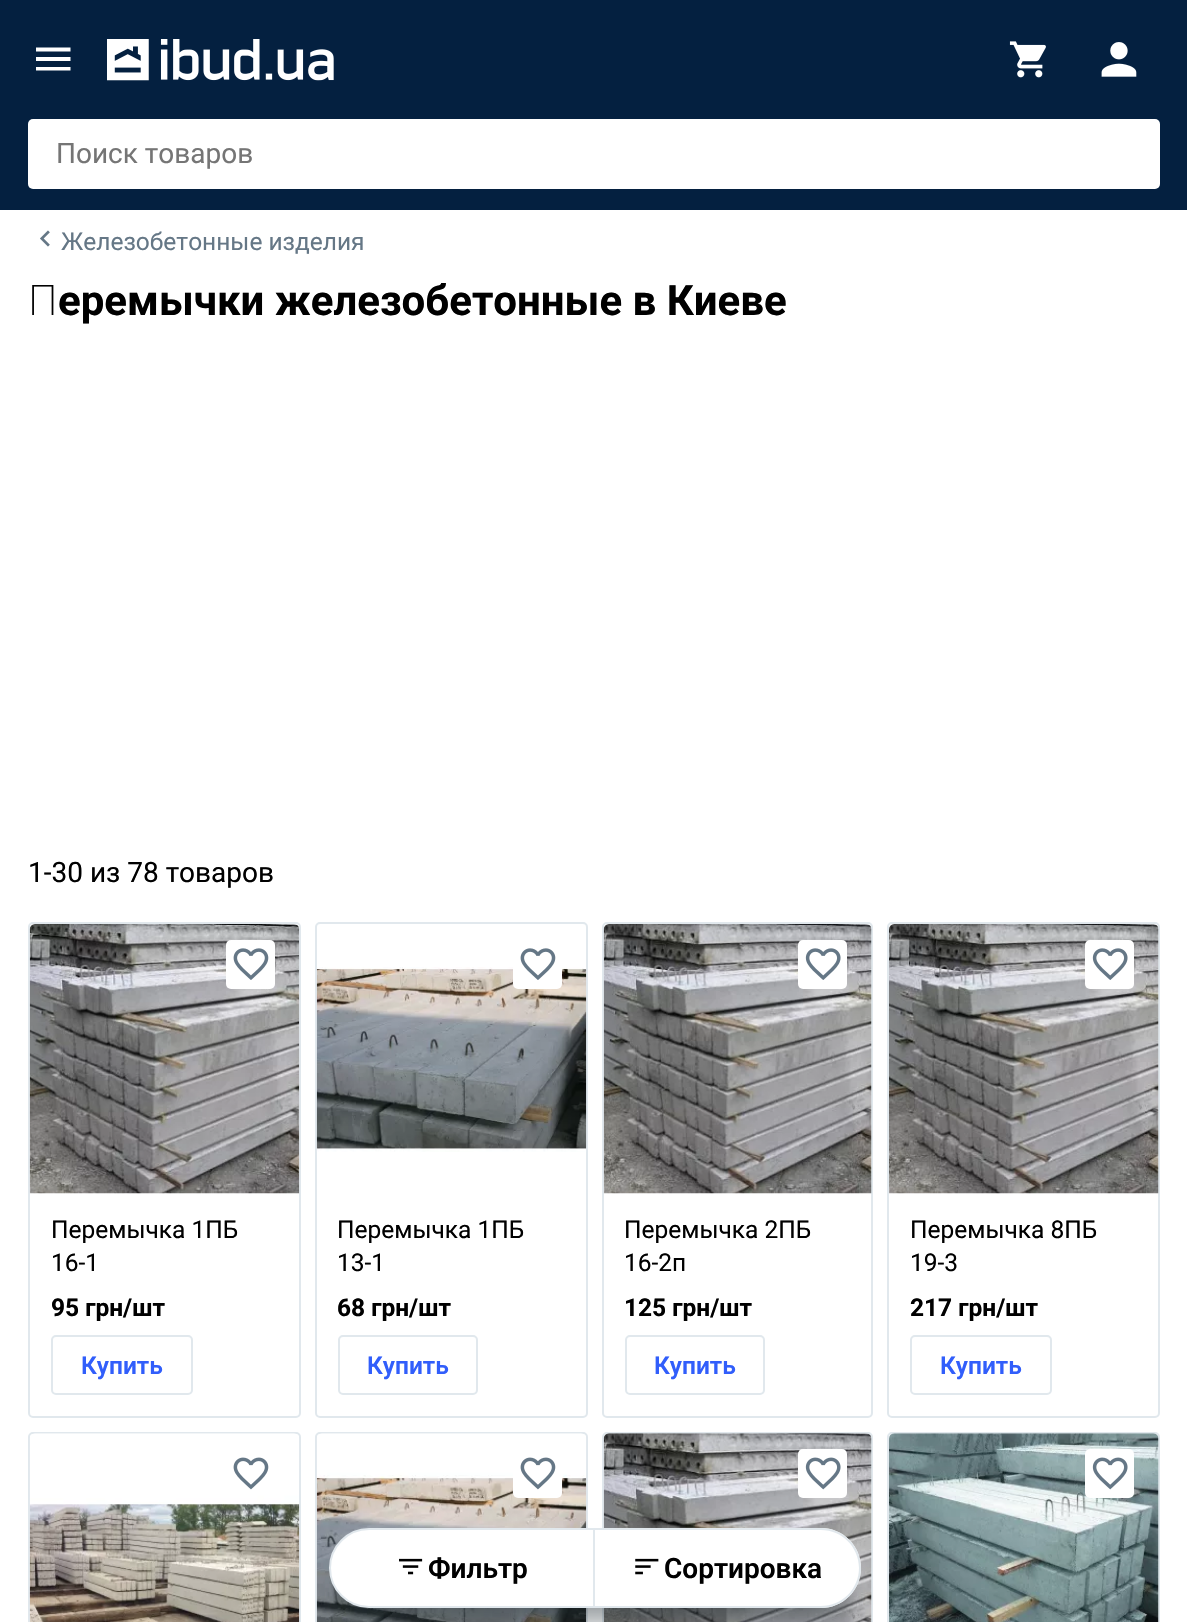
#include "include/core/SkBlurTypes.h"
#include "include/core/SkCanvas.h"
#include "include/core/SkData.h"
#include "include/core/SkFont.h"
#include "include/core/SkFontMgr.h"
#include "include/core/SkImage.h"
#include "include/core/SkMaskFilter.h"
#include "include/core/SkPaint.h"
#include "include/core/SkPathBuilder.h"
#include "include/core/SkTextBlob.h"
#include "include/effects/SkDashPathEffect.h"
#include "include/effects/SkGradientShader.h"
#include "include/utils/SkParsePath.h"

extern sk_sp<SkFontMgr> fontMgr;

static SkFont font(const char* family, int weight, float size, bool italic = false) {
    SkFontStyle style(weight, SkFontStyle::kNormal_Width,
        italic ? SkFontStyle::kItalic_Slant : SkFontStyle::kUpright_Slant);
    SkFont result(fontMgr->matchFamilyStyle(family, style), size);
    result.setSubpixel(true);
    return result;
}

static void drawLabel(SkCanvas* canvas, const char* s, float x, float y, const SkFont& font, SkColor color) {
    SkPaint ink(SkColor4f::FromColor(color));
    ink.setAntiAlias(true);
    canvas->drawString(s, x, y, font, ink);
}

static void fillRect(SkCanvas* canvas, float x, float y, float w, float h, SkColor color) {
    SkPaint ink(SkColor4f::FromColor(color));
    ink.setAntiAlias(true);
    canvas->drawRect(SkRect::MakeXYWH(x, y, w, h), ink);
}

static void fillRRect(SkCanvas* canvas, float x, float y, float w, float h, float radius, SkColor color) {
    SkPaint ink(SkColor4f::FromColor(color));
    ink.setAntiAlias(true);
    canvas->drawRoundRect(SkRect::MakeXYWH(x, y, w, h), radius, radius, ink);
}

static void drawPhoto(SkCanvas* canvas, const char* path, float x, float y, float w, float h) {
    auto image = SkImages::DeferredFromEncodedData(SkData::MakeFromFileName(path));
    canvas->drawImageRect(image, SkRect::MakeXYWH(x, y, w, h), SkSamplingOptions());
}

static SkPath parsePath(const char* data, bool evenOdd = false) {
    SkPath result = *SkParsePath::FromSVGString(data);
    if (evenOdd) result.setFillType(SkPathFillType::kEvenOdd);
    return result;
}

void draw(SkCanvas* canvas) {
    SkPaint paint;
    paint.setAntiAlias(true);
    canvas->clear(0xFFFFFFFF);
    fillRect(canvas, 0, 0, 1187, 210, 0xFF042040);
    paint.setColor(0xFFFFFFFF);
    canvas->drawPath(parsePath("M36 70.5H70.5V67H36ZM36 61H70.5V57H36ZM36 47.5V51.5H70.5V47.5Z"), paint);
    drawPhoto(canvas, "assets/img1.png", 107, 39, 227, 42);
    drawPhoto(canvas, "assets/img2.png", 1009, 41, 37, 37);
    drawPhoto(canvas, "assets/img3.png", 1101, 42, 36, 35);
    fillRRect(canvas, 28, 119, 1132, 70, 5, 0xFFFFFFFF);
    SkFont font1 = font("Roboto", 400, 28);
    drawLabel(canvas, "Поиск товаров", 56, 163, font1, 0xFF757575);
    drawPhoto(canvas, "assets/img4.png", 40, 230, 10, 17);
    SkFont font2 = font("Roboto", 400, 24.5f);
    drawLabel(canvas, "Железобетонные изделия", 61, 250, font2, 0xFF657786);
    SkFont font3 = font("Noto Sans", 200, 42);
    drawLabel(canvas, "П", 28, 315, font3, 0xFF000000);
    SkFont font4 = font("Roboto", 700, 42);
    drawLabel(canvas, "еремычки железобетонные в Киеве", 58, 315, font4, 0xFF000000);
    drawLabel(canvas, "1-30 из 78 товаров", 28, 882, font1, 0xFF000000);
    paint.setStroke(true);
    paint.setStrokeWidth(2);
    paint.setColor(0xFFE1E8ED);
    canvas->drawRoundRect(SkRect::MakeXYWH(29, 923, 271, 494), 4, 4, paint);
    drawPhoto(canvas, "assets/img5.png", 29, 924, 271, 270);
    fillRRect(canvas, 226, 940, 49, 49, 5, 0xFFFFFFFF);
    drawPhoto(canvas, "assets/img6.png", 233, 948, 36, 32);
    drawLabel(canvas, "Перемычка 1ПБ", 51, 1238, font2, 0xFF000000);
    drawLabel(canvas, "16-1", 51, 1271, font2, 0xFF000000);
    SkFont font5 = font("Roboto", 700, 24.5f);
    drawLabel(canvas, "95 грн/шт", 51, 1316, font5, 0xFF000000);
    canvas->drawRoundRect(SkRect::MakeXYWH(52, 1336, 140, 58), 4, 4, paint);
    SkFont font6 = font("Roboto", 600, 24.5f);
    drawLabel(canvas, "Купить", 81, 1374, font6, 0xFF315EFB);
    canvas->drawRoundRect(SkRect::MakeXYWH(316, 923, 271, 494), 4, 4, paint);
    drawPhoto(canvas, "assets/img7.png", 316, 967, 271, 185);
    fillRRect(canvas, 513, 940, 49, 49, 5, 0xFFFFFFFF);
    drawPhoto(canvas, "assets/img6.png", 520, 948, 36, 32);
    drawLabel(canvas, "Перемычка 1ПБ", 337, 1238, font2, 0xFF000000);
    drawLabel(canvas, "13-1", 337, 1271, font2, 0xFF000000);
    drawLabel(canvas, "68 грн/шт", 337, 1316, font5, 0xFF000000);
    canvas->drawRoundRect(SkRect::MakeXYWH(339, 1336, 138, 58), 4, 4, paint);
    drawLabel(canvas, "Купить", 367, 1374, font6, 0xFF315EFB);
    canvas->drawRoundRect(SkRect::MakeXYWH(603, 923, 269, 494), 4, 4, paint);
    drawPhoto(canvas, "assets/img8.png", 603, 924, 269, 270);
    fillRRect(canvas, 798, 940, 49, 49, 5, 0xFFFFFFFF);
    drawPhoto(canvas, "assets/img9.png", 805, 948, 36, 32);
    drawLabel(canvas, "Перемычка 2ПБ", 624, 1238, font2, 0xFF000000);
    drawLabel(canvas, "16-2п", 624, 1271, font2, 0xFF000000);
    drawLabel(canvas, "125 грн/шт", 624, 1316, font5, 0xFF000000);
    canvas->drawRoundRect(SkRect::MakeXYWH(626, 1336, 138, 58), 4, 4, paint);
    drawLabel(canvas, "Купить", 654, 1374, font6, 0xFF315EFB);
    canvas->drawRoundRect(SkRect::MakeXYWH(888, 923, 271, 494), 4, 4, paint);
    drawPhoto(canvas, "assets/img10.png", 889, 924, 270, 270);
    fillRRect(canvas, 1085, 940, 49, 49, 5, 0xFFFFFFFF);
    drawPhoto(canvas, "assets/img9.png", 1092, 948, 36, 32);
    drawLabel(canvas, "Перемычка 8ПБ", 910, 1238, font2, 0xFF000000);
    drawLabel(canvas, "19-3", 910, 1271, font2, 0xFF000000);
    drawLabel(canvas, "217 грн/шт", 910, 1316, font5, 0xFF000000);
    canvas->drawRoundRect(SkRect::MakeXYWH(911, 1336, 140, 58), 4, 4, paint);
    drawLabel(canvas, "Купить", 940, 1374, font6, 0xFF315EFB);
    canvas->drawRoundRect(SkRect::MakeXYWH(29, 1433, 271, 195), 4, 4, paint);
    drawPhoto(canvas, "assets/img11.png", 29, 1433, 271, 189);
    drawPhoto(canvas, "assets/img12.png", 233, 1457, 36, 33);
    canvas->drawRoundRect(SkRect::MakeXYWH(316, 1433, 271, 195), 4, 4, paint);
    drawPhoto(canvas, "assets/img13.png", 316, 1433, 271, 189);
    fillRRect(canvas, 513, 1449, 49, 49, 5, 0xFFFFFFFF);
    drawPhoto(canvas, "assets/img12.png", 520, 1457, 36, 33);
    canvas->drawRoundRect(SkRect::MakeXYWH(603, 1433, 269, 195), 4, 4, paint);
    drawPhoto(canvas, "assets/img14.png", 603, 1433, 269, 189);
    fillRRect(canvas, 798, 1449, 49, 49, 5, 0xFFFFFFFF);
    drawPhoto(canvas, "assets/img15.png", 805, 1457, 36, 33);
    canvas->drawRoundRect(SkRect::MakeXYWH(888, 1433, 271, 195), 4, 4, paint);
    drawPhoto(canvas, "assets/img16.png", 889, 1433, 270, 189);
    fillRRect(canvas, 1085, 1449, 49, 49, 5, 0xFFFFFFFF);
    drawPhoto(canvas, "assets/img15.png", 1092, 1457, 36, 33);
    paint.setStroke(false);
    paint.setColor(0x80263238);
    paint.setMaskFilter(SkMaskFilter::MakeBlur(kNormal_SkBlurStyle, 14));
    canvas->drawRoundRect(SkRect::MakeXYWH(343, 1570, 504, 52), 26, 26, paint);
    paint.setMaskFilter(nullptr);
    paint.setColor(0xFFFFFFFF);
    canvas->drawPath(parsePath("M369 1529H594V1607H369C347.5 1607 330 1589.5 330 1568C330 1546.5 347.5 1529 369 1529Z"), paint);
    paint.setStroke(true);
    paint.setColor(0xFFE1E8ED);
    canvas->drawPath(parsePath("M369 1529H594V1607H369C347.5 1607 330 1589.5 330 1568C330 1546.5 347.5 1529 369 1529Z"), paint);
    drawPhoto(canvas, "assets/img17.png", 399, 1558, 24, 17);
    SkFont font7 = font("Roboto", 600, 28);
    drawLabel(canvas, "Фильтр", 428, 1578, font7, 0xFF000000);
    paint.setStroke(false);
    paint.setColor(0xFFFFFFFF);
    canvas->drawPath(parsePath("M595 1528H821C843 1528 861 1546 861 1568C861 1590 843 1608 821 1608H595Z"), paint);
    paint.setColor(0xFFE1E8ED);
    canvas->drawPath(parsePath("M595 1528H821C843 1528 861 1546 861 1568C861 1590 843 1608 821 1608H595ZM595 1530H821C842 1530 859 1547 859 1568C859 1589 842 1606 821 1606H595Z", true), paint);
    drawPhoto(canvas, "assets/img18.png", 635, 1558, 24, 17);
    drawLabel(canvas, "Сортировка", 664, 1578, font7, 0xFF000000);
}
